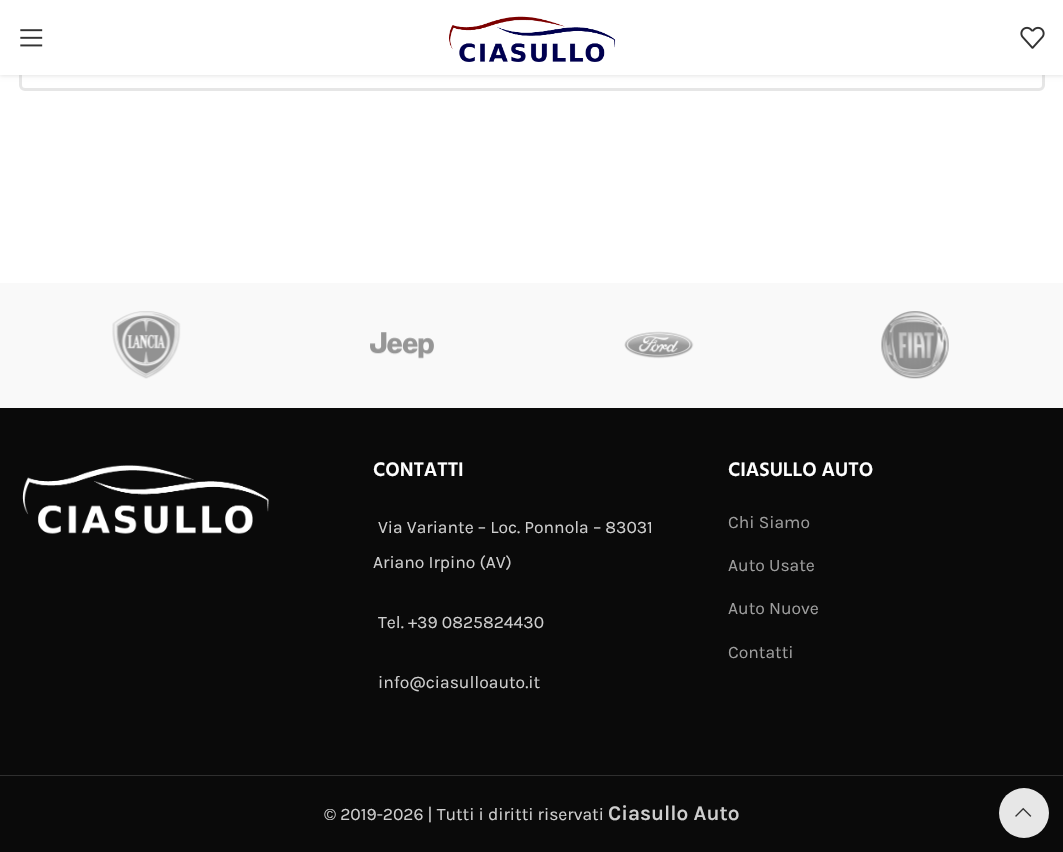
#include "include/core/SkBlurTypes.h"
#include "include/core/SkCanvas.h"
#include "include/core/SkData.h"
#include "include/core/SkFont.h"
#include "include/core/SkFontMgr.h"
#include "include/core/SkImage.h"
#include "include/core/SkMaskFilter.h"
#include "include/core/SkPaint.h"
#include "include/core/SkPathBuilder.h"
#include "include/core/SkTextBlob.h"
#include "include/effects/SkDashPathEffect.h"
#include "include/effects/SkGradientShader.h"
#include "include/utils/SkParsePath.h"

extern sk_sp<SkFontMgr> fontMgr;

static SkFont font(const char* family, int weight, float size, bool italic = false) {
    SkFontStyle style(weight, SkFontStyle::kNormal_Width,
        italic ? SkFontStyle::kItalic_Slant : SkFontStyle::kUpright_Slant);
    SkFont result(fontMgr->matchFamilyStyle(family, style), size);
    result.setSubpixel(true);
    return result;
}

static void drawLabel(SkCanvas* canvas, const char* s, float x, float y, const SkFont& font, SkColor color) {
    SkPaint ink(SkColor4f::FromColor(color));
    ink.setAntiAlias(true);
    canvas->drawString(s, x, y, font, ink);
}

static void fillRect(SkCanvas* canvas, float x, float y, float w, float h, SkColor color) {
    SkPaint ink(SkColor4f::FromColor(color));
    ink.setAntiAlias(true);
    canvas->drawRect(SkRect::MakeXYWH(x, y, w, h), ink);
}

static void drawPhoto(SkCanvas* canvas, const char* path, float x, float y, float w, float h) {
    auto image = SkImages::DeferredFromEncodedData(SkData::MakeFromFileName(path));
    canvas->drawImageRect(image, SkRect::MakeXYWH(x, y, w, h), SkSamplingOptions());
}

void draw(SkCanvas* canvas) {
    SkPaint paint;
    paint.setAntiAlias(true);
    canvas->clear(0xFFFFFFFF);
    paint.setStroke(true);
    paint.setStrokeWidth(3);
    paint.setColor(0xFFE6E6E6);
    canvas->drawRoundRect(SkRect::MakeXYWH(20.5f, 35.5f, 1023, 54), 4.5f, 4.5f, paint);
    paint.setStroke(false);
    paint.setColor(0x1A000000);
    paint.setMaskFilter(SkMaskFilter::MakeBlur(kNormal_SkBlurStyle, 2));
    canvas->drawRect(SkRect::MakeXYWH(0, 1, 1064, 75), paint);
    paint.setMaskFilter(nullptr);
    fillRect(canvas, 0, 0, 1063, 75, 0xFFFFFFFF);
    drawPhoto(canvas, "assets/img1.png", 20, 29, 23, 18);
    drawPhoto(canvas, "assets/img2.png", 449, 16, 167, 46);
    drawPhoto(canvas, "assets/img3.png", 1020, 26, 25, 23);
    fillRect(canvas, 0, 283, 1063, 125, 0xFFF9F9F9);
    drawPhoto(canvas, "assets/img4.png", 112, 311, 69, 68);
    drawPhoto(canvas, "assets/img5.png", 370, 332, 64, 27);
    drawPhoto(canvas, "assets/img6.png", 624, 331, 70, 28);
    drawPhoto(canvas, "assets/img7.png", 881, 311, 68, 68);
    fillRect(canvas, 0, 408, 1063, 444, 0xFF0A0A0A);
    drawPhoto(canvas, "assets/img8.png", 22, 465, 247, 69);
    SkFont font1 = font("Hind", 600, 20);
    drawLabel(canvas, "CONTATTI", 373, 476, font1, 0xFFFFFFFF);
    SkFont font2 = font("Karla", 400, 17.5f);
    drawLabel(canvas, "Via Variante – Loc. Ponnola – 83031", 378, 533, font2, 0xFFCECECE);
    drawLabel(canvas, "Ariano Irpino (AV)", 373, 568, font2, 0xFFCECECE);
    drawLabel(canvas, "Tel. +39 0825824430", 378, 628, font2, 0xFFCECECE);
    drawLabel(canvas, "info@ciasulloauto.it", 378, 688, font2, 0xFFCECECE);
    drawLabel(canvas, "CIASULLO AUTO", 728, 476, font1, 0xFFFFFFFF);
    drawLabel(canvas, "Chi Siamo", 728, 528, font2, 0xFF9D9D9D);
    drawLabel(canvas, "Auto Usate", 728, 571, font2, 0xFF9D9D9D);
    drawLabel(canvas, "Auto Nuove", 728, 614, font2, 0xFF9D9D9D);
    drawLabel(canvas, "Contatti", 728, 658, font2, 0xFF9D9D9D);
    fillRect(canvas, 0, 775, 1063, 1, 0xFF2F2F2F);
    drawLabel(canvas, "© 2019-2026 | Tutti i diritti riservati", 324, 820, font2, 0xFFCECECE);
    SkFont font3 = font("Karla", 600, 21);
    drawLabel(canvas, "Ciasullo Auto", 608, 820, font3, 0xFFCECECE);
    paint.setColor(0xFFE7E7E7);
    canvas->drawCircle(1024, 813, 25, paint);
    drawPhoto(canvas, "assets/img9.png", 1015, 807, 17, 10);
}
